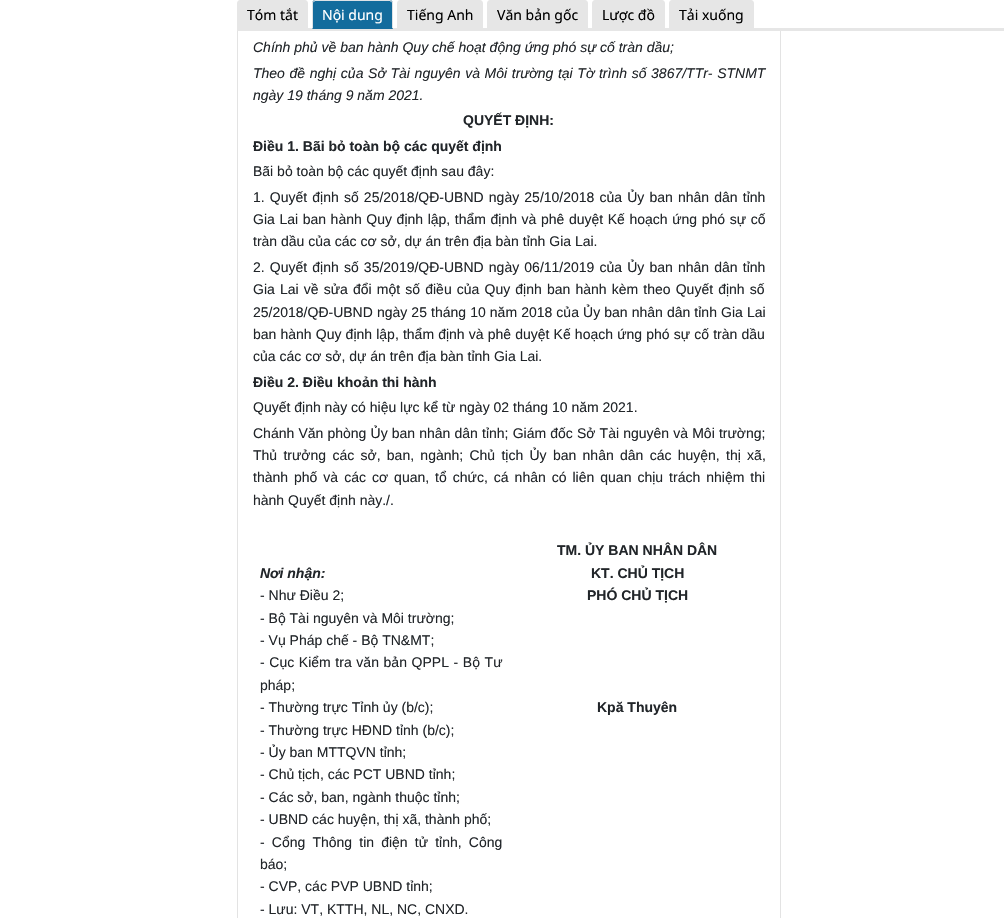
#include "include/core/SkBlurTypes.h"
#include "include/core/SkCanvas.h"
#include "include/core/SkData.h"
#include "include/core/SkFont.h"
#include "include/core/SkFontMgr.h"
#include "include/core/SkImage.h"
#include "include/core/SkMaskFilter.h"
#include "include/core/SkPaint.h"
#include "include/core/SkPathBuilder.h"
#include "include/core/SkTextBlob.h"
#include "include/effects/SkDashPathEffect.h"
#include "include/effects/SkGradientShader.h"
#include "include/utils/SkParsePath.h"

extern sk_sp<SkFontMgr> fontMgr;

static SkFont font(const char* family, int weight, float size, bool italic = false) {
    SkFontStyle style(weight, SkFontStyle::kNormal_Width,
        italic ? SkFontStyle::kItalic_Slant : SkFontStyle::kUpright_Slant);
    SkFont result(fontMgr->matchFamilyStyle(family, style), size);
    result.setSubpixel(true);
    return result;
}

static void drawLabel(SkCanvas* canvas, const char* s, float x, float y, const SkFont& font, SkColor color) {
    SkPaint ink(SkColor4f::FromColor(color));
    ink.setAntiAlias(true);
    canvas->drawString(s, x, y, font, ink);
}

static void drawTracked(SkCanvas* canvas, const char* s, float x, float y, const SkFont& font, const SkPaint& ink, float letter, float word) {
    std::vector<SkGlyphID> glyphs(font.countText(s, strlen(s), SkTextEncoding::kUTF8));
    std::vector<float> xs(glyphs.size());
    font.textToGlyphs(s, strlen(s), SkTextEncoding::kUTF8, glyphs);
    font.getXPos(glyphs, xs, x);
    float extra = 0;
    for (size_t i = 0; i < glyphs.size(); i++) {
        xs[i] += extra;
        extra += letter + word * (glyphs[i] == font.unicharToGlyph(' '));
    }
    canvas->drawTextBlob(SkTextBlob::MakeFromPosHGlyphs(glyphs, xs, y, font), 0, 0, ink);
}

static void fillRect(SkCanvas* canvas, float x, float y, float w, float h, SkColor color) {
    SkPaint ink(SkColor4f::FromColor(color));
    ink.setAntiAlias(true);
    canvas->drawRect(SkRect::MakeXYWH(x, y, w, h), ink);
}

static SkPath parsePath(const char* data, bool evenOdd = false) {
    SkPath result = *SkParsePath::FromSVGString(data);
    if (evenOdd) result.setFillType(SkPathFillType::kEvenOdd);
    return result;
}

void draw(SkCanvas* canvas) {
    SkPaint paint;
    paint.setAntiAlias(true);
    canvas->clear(0xFFFFFFFF);
    paint.setStroke(true);
    paint.setStrokeWidth(1);
    paint.setColor(0xFFE3E3E3);
    canvas->drawRect(SkRect::MakeXYWH(237.5f, -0.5f, 543, 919), paint);
    fillRect(canvas, 237, 0, 544, 28, 0xFFFFFFFF);
    fillRect(canvas, 237, 28, 767, 3, 0xFFE6E6E6);
    paint.setStroke(false);
    paint.setColor(0xFFE6E6E6);
    canvas->drawPath(parsePath("M240 0H305C306.5 0 308 1.5 308 3V29H237V3C237 1.5 238.5 0 240 0Z"), paint);
    SkFont font1 = font("Noto Sans", 400, 14);
    drawLabel(canvas, "Tóm tắt", 247, 20, font1, 0xFF000000);
    paint.setColor(0xFF136C9D);
    canvas->drawPath(parsePath("M315 0H390C391.5 0 393 1.5 393 3V29H312V3C312 1.5 313.5 0 315 0Z"), paint);
    paint.setColor(0xFFDEE2E6);
    canvas->drawPath(parsePath("M315 0L313 1L314 2L315 1H390L391 2L392 1L390 0Z"), paint);
    canvas->drawPath(parsePath("M393 29V3C393 2 393 1 392 1L391.5 1.5L392 3V28Z"), paint);
    paint.setColor(0xFF136C9D);
    canvas->drawPath(parsePath("M393 29L392 28H313L312 29Z"), paint);
    paint.setColor(0xFFDEE2E6);
    canvas->drawPath(parsePath("M312 29L313 28V3L313.5 1.5L313 1C312 1 312 2 312 3Z"), paint);
    drawLabel(canvas, "Nội dung", 322, 20, font1, 0xFFFFFFFF);
    paint.setColor(0xFFE6E6E6);
    canvas->drawPath(parsePath("M400 0H480C481.5 0 483 1.5 483 3V29H397V3C397 1.5 398.5 0 400 0Z"), paint);
    drawLabel(canvas, "Tiếng Anh", 407, 20, font1, 0xFF000000);
    canvas->drawPath(parsePath("M490 0H585C586.5 0 588 1.5 588 3V29H487V3C487 1.5 488.5 0 490 0Z"), paint);
    drawLabel(canvas, "Văn bản gốc", 497, 20, font1, 0xFF000000);
    canvas->drawPath(parsePath("M595 0H662C663.5 0 665 1.5 665 3V29H592V3C592 1.5 593.5 0 595 0Z"), paint);
    drawLabel(canvas, "Lược đồ", 602, 20, font1, 0xFF000000);
    canvas->drawPath(parsePath("M672 0H751C752.5 0 754 1.5 754 3V29H669V3C669 1.5 670.5 0 672 0Z"), paint);
    drawLabel(canvas, "Tải xuống", 679, 20, font1, 0xFF000000);
    SkFont font2 = font("Liberation Sans", 400, 14, true);
    drawLabel(canvas, "Chính phủ về ban hành Quy chế hoạt động ứng phó sự cố tràn dầu;", 253, 52, font2, 0xFF212529);
    paint.setColor(0xFF212529);
    drawTracked(canvas, "Theo đề nghị của Sở Tài nguyên và Môi trường tại Tờ trình số 3867/TTr- STNMT", 253, 78, font2, paint, 0, 0.75f);
    drawLabel(canvas, "ngày 19 tháng 9 năm 2021.", 253, 100, font2, 0xFF212529);
    SkFont font3 = font("Liberation Sans", 700, 14);
    drawLabel(canvas, "QUYẾT ĐỊNH:", 463, 125, font3, 0xFF212529);
    drawLabel(canvas, "Điều 1. Bãi bỏ toàn bộ các quyết định", 253, 151, font3, 0xFF212529);
    SkFont font4 = font("Liberation Sans", 400, 14);
    drawLabel(canvas, "Bãi bỏ toàn bộ các quyết định sau đây:", 253, 176, font4, 0xFF212529);
    drawTracked(canvas, "1. Quyết định số 25/2018/QĐ-UBND ngày 25/10/2018 của Ủy ban nhân dân tỉnh", 253, 202, font4, paint, 0, 1.25f);
    drawTracked(canvas, "Gia Lai ban hành Quy định lập, thẩm định và phê duyệt Kế hoạch ứng phó sự cố", 253, 224, font4, paint, 0, 0.7f);
    drawLabel(canvas, "tràn dầu của các cơ sở, dự án trên địa bàn tỉnh Gia Lai.", 253, 246, font4, 0xFF212529);
    drawTracked(canvas, "2. Quyết định số 35/2019/QĐ-UBND ngày 06/11/2019 của Ủy ban nhân dân tỉnh", 253, 272, font4, paint, 0, 1.25f);
    drawTracked(canvas, "Gia Lai về sửa đổi một số điều của Quy định ban hành kèm theo Quyết định số", 253, 294, font4, paint, 0, 1.25f);
    drawTracked(canvas, "25/2018/QĐ-UBND ngày 25 tháng 10 năm 2018 của Ủy ban nhân dân tỉnh Gia Lai", 253, 317, font4, paint, 0, 0.2f);
    drawTracked(canvas, "ban hành Quy định lập, thẩm định và phê duyệt Kế hoạch ứng phó sự cố tràn dầu", 253, 339, font4, paint, 0, 0.25f);
    drawLabel(canvas, "của các cơ sở, dự án trên địa bàn tỉnh Gia Lai.", 253, 361, font4, 0xFF212529);
    drawLabel(canvas, "Điều 2. Điều khoản thi hành", 253, 387, font3, 0xFF212529);
    drawLabel(canvas, "Quyết định này có hiệu lực kể từ ngày 02 tháng 10 năm 2021.", 253, 412, font4, 0xFF212529);
    drawTracked(canvas, "Chánh Văn phòng Ủy ban nhân dân tỉnh; Giám đốc Sở Tài nguyên và Môi trường;", 253, 438, font4, paint, 0, 0.25f);
    drawTracked(canvas, "Thủ trưởng các sở, ban, ngành; Chủ tịch Ủy ban nhân dân các huyện, thị xã,", 253, 460, font4, paint, 0, 2.4f);
    drawTracked(canvas, "thành phố và các cơ quan, tổ chức, cá nhân có liên quan chịu trách nhiệm thi", 253, 482, font4, paint, 0, 2.1f);
    drawLabel(canvas, "hành Quyết định này./.", 253, 505, font4, 0xFF212529);
    SkFont font5 = font("Liberation Sans", 700, 14, true);
    drawLabel(canvas, "Nơi nhận:", 260, 578, font5, 0xFF212529);
    drawLabel(canvas, "- Như Điều 2;", 260, 600, font4, 0xFF212529);
    drawLabel(canvas, "- Bộ Tài nguyên và Môi trường;", 260, 623, font4, 0xFF212529);
    drawLabel(canvas, "- Vụ Pháp chế - Bộ TN&MT;", 260, 645, font4, 0xFF212529);
    drawTracked(canvas, "- Cục Kiểm tra văn bản QPPL - Bộ Tư", 260, 667, font4, paint, 0, 0.75f);
    drawLabel(canvas, "pháp;", 260, 690, font4, 0xFF212529);
    drawLabel(canvas, "- Thường trực Tỉnh ủy (b/c);", 260, 712, font4, 0xFF212529);
    drawLabel(canvas, "- Thường trực HĐND tỉnh (b/c);", 260, 735, font4, 0xFF212529);
    drawLabel(canvas, "- Ủy ban MTTQVN tỉnh;", 260, 757, font4, 0xFF212529);
    drawLabel(canvas, "- Chủ tịch, các PCT UBND tỉnh;", 260, 779, font4, 0xFF212529);
    drawLabel(canvas, "- Các sở, ban, ngành thuộc tỉnh;", 260, 802, font4, 0xFF212529);
    drawLabel(canvas, "- UBND các huyện, thị xã, thành phố;", 260, 824, font4, 0xFF212529);
    drawTracked(canvas, "- Cổng Thông tin điện tử tỉnh, Công", 260, 847, font4, paint, 0, 3.25f);
    drawLabel(canvas, "báo;", 260, 869, font4, 0xFF212529);
    drawLabel(canvas, "- CVP, các PVP UBND tỉnh;", 260, 891, font4, 0xFF212529);
    drawLabel(canvas, "- Lưu: VT, KTTH, NL, NC, CNXD.", 260, 914, font4, 0xFF212529);
    drawLabel(canvas, "TM. ỦY BAN NHÂN DÂN", 557, 555, font3, 0xFF212529);
    drawLabel(canvas, "KT. CHỦ TỊCH", 591, 578, font3, 0xFF212529);
    drawLabel(canvas, "PHÓ CHỦ TỊCH", 587, 600, font3, 0xFF212529);
    drawLabel(canvas, "Kpă Thuyên", 597, 712, font3, 0xFF212529);
}
